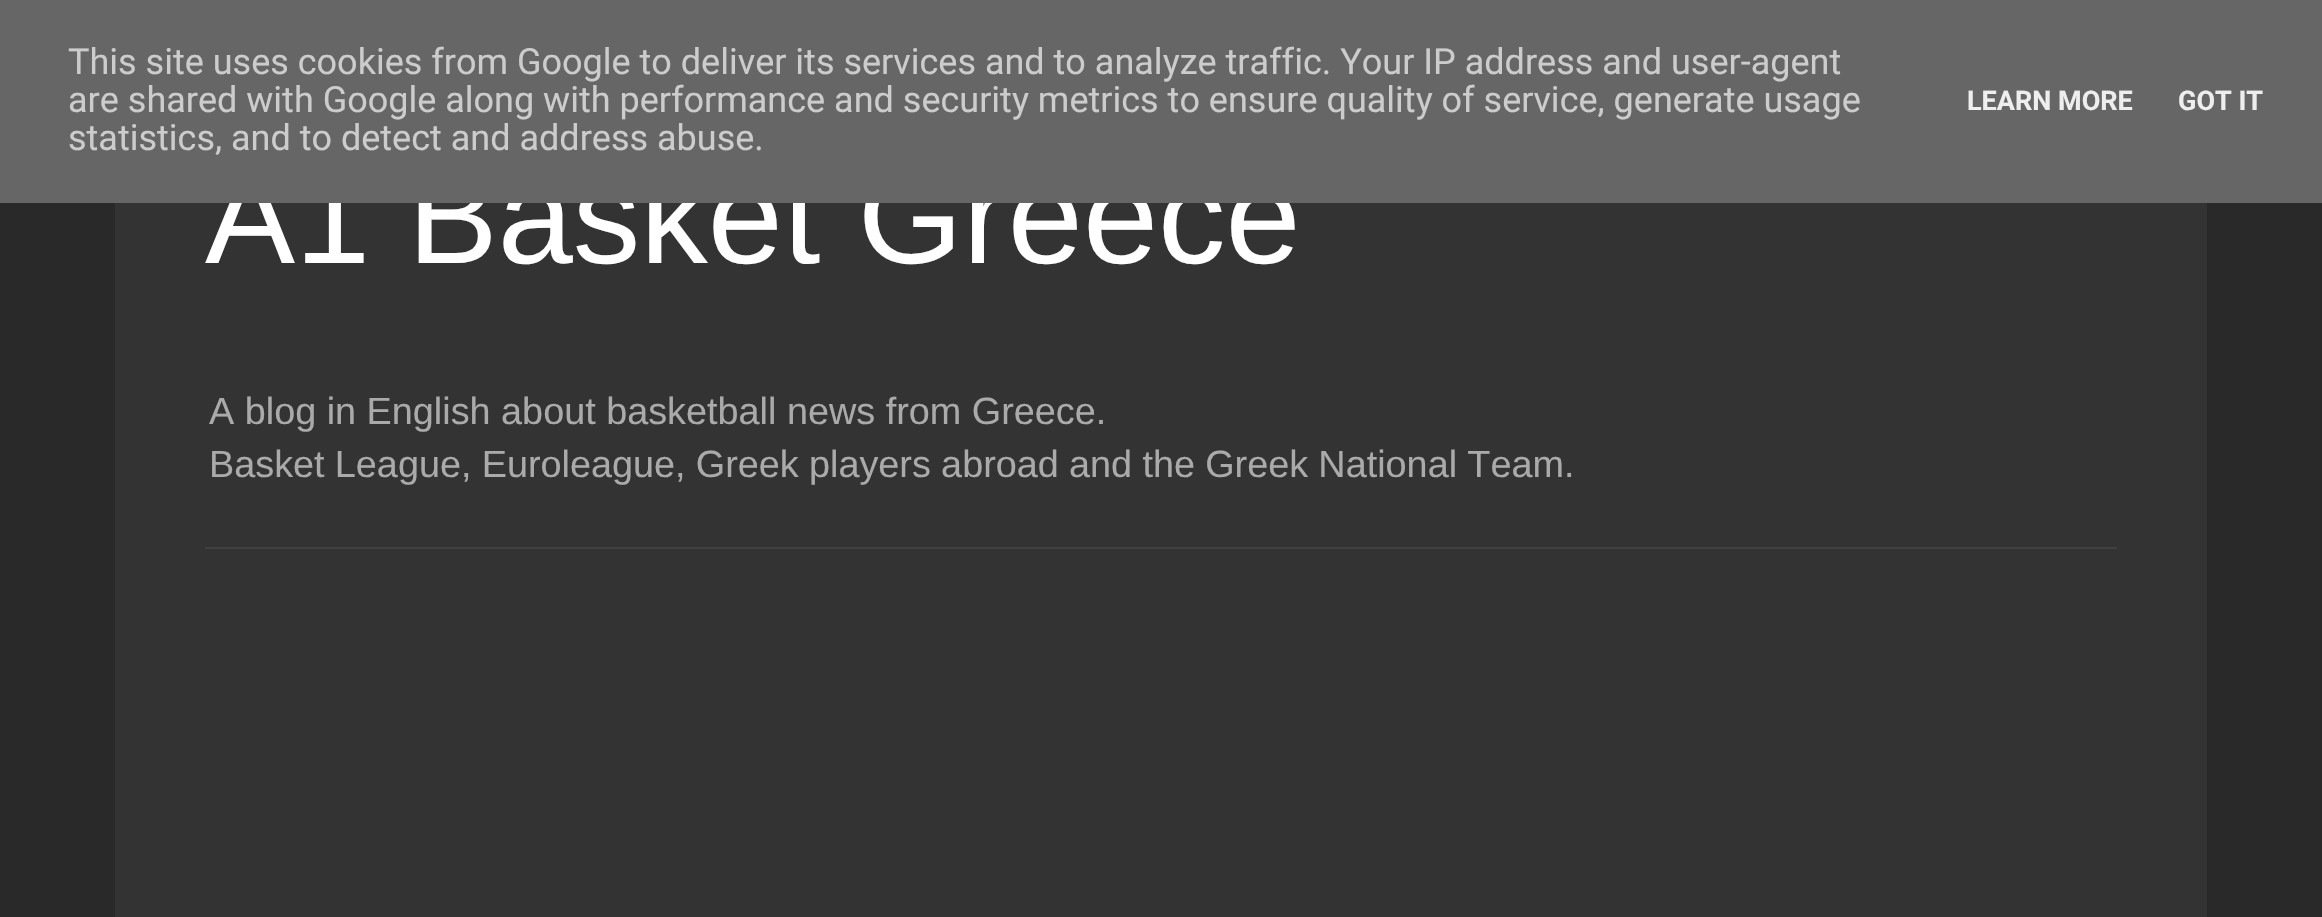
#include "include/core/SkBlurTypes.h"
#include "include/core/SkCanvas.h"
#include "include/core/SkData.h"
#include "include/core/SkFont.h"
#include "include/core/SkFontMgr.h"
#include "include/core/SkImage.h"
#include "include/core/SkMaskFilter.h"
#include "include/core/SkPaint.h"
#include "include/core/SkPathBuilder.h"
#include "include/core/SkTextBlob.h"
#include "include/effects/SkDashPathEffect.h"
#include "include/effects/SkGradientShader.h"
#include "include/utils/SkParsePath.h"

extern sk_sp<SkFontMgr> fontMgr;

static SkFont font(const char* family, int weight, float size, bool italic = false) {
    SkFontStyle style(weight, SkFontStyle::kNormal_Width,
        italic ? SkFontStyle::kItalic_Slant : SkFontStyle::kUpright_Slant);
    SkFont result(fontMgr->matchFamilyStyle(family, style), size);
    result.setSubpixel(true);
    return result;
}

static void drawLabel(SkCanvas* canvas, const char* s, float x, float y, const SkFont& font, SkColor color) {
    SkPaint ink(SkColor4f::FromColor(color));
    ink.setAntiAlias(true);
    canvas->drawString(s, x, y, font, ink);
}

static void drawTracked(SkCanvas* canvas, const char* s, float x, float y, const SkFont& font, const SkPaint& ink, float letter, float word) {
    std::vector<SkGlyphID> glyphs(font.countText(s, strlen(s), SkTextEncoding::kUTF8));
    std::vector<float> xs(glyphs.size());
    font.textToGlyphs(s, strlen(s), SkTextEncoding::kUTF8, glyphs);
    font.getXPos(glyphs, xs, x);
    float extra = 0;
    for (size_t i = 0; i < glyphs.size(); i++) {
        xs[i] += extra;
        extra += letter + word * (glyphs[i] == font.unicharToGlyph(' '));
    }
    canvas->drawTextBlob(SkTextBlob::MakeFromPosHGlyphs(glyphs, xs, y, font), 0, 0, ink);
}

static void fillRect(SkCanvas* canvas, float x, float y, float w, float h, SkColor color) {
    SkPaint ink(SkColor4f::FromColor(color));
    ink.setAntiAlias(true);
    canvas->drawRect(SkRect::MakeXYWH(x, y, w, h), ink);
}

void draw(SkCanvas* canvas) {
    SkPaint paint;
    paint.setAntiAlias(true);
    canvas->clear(0xFF292929);
    fillRect(canvas, 115, 203, 2092, 714, 0xFF333333);
    SkFont font1 = font("Liberation Sans", 400, 135);
    drawLabel(canvas, "A1 Basket Greece", 205, 263, font1, 0xFFFFFFFF);
    fillRect(canvas, 0, 0, 2322, 203, 0xFF666666);
    SkFont font2 = font("Roboto", 400, 36);
    drawLabel(canvas, "This site uses cookies from Google to deliver its services and to analyze traffic. Your IP address and user-agent", 68, 74, font2, 0xFFCCCCCC);
    drawLabel(canvas, "are shared with Google along with performance and security metrics to ensure quality of service, generate usage", 68, 112, font2, 0xFFCCCCCC);
    drawLabel(canvas, "statistics, and to detect and address abuse.", 68, 150, font2, 0xFFCCCCCC);
    SkFont font3 = font("Roboto", 700, 27);
    drawLabel(canvas, "LEARN MORE", 1967, 110, font3, 0xFFEEEEEE);
    drawLabel(canvas, "GOT IT", 2178, 110, font3, 0xFFEEEEEE);
    SkFont font4 = font("Liberation Sans", 400, 37.8f);
    drawLabel(canvas, "A blog in English about basketball news from Greece.", 209, 424, font4, 0xFFAAAAAA);
    paint.setColor(0xFFAAAAAA);
    drawTracked(canvas, "Basket League, Euroleague, Greek players abroad and the Greek National Team.", 209, 477, font4, paint, 0, -0.25f);
    fillRect(canvas, 205, 547, 1912, 2, 0xFF404040);
}
